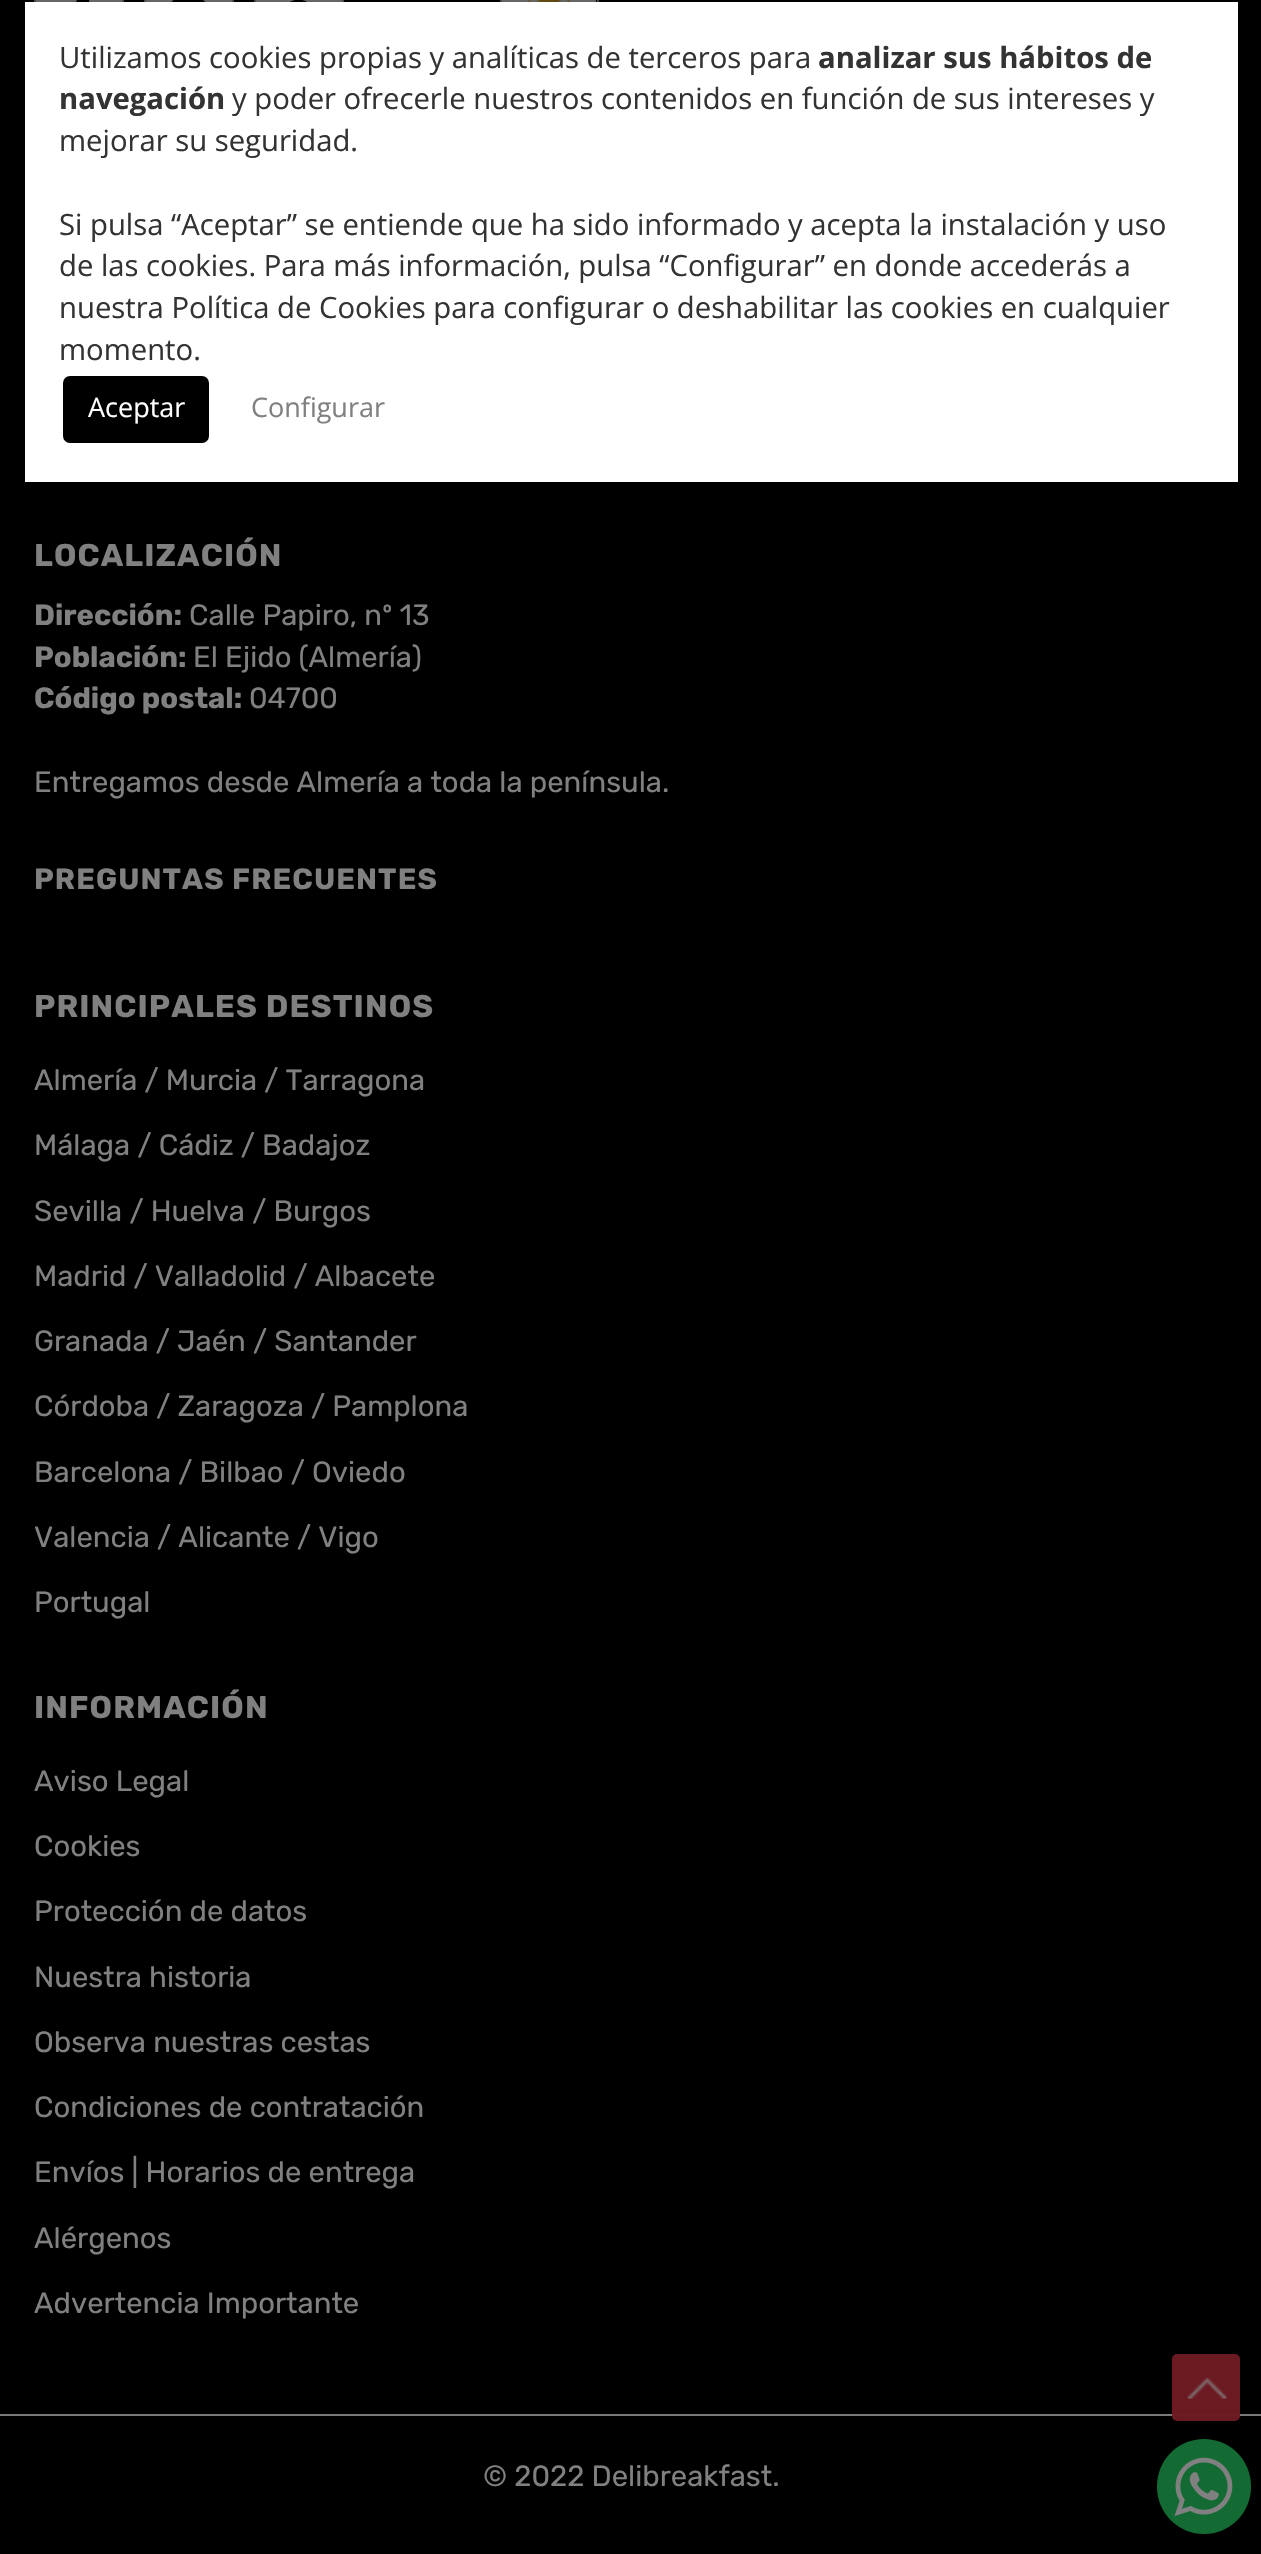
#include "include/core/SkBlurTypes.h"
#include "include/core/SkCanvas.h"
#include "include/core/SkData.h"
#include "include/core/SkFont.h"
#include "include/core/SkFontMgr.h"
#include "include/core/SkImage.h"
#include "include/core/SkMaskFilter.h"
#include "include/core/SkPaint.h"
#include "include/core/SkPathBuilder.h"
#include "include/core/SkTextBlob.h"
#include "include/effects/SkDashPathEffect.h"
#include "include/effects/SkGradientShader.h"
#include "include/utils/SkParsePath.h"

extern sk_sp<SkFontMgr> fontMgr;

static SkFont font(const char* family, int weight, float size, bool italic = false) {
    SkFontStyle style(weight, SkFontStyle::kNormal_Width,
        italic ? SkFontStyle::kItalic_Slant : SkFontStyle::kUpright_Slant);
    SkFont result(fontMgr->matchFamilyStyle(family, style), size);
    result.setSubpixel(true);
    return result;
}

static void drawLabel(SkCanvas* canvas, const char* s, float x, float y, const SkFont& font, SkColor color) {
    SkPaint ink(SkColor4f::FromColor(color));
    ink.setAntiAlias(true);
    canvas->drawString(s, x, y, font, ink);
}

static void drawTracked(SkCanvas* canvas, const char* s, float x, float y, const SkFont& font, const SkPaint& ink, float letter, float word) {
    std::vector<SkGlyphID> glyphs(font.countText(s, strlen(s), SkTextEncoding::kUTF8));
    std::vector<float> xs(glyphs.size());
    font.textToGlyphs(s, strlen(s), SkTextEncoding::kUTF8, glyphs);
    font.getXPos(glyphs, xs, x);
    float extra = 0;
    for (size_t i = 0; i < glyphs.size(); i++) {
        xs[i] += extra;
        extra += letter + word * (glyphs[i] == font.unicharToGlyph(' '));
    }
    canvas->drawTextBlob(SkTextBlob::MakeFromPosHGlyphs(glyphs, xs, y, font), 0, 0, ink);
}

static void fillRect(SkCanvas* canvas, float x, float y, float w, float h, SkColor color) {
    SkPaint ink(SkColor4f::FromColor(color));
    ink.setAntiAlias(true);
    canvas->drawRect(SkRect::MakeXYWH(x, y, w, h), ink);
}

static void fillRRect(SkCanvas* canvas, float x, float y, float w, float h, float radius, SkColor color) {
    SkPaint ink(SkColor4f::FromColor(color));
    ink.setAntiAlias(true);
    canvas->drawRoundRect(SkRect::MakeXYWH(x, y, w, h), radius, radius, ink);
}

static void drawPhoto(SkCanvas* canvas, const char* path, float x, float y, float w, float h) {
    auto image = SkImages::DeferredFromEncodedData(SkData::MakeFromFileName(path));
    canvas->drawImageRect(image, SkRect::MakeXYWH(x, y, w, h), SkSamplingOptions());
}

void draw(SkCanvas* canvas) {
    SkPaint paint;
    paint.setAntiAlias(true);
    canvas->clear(0xFF000000);
    fillRect(canvas, 36, 0, 86, 2, 0xFF808080);
    paint.setStroke(true);
    paint.setStrokeWidth(2);
    paint.setColor(0xFF585B5E);
    canvas->drawRect(SkRect::MakeXYWH(35, -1, 88, 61), paint);
    fillRect(canvas, 146, 0, 86, 2, 0xFF808080);
    canvas->drawRect(SkRect::MakeXYWH(145, -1, 88, 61), paint);
    fillRect(canvas, 256, 0, 86, 2, 0xFF808080);
    canvas->drawRect(SkRect::MakeXYWH(255, -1, 88, 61), paint);
    canvas->drawRect(SkRect::MakeXYWH(501, -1, 97, 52), paint);
    fillRect(canvas, 25, 2, 1213, 480, 0xFFFFFFFF);
    drawPhoto(canvas, "assets/img1.png", 76, 0, 14, 2);
    drawPhoto(canvas, "assets/img2.png", 171, 0, 35, 2);
    drawPhoto(canvas, "assets/img3.png", 290, 0, 18, 2);
    drawPhoto(canvas, "assets/img4.png", 501, 0, 96, 2);
    paint.setColor(0x33000000);
    canvas->drawRect(SkRect::MakeXYWH(24, 1, 1215, 482), paint);
    SkFont font1 = font("Open Sans", 400, 29.25f);
    drawLabel(canvas, "Utilizamos cookies propias y analíticas de terceros para", 59, 68, font1, 0xFF333333);
    SkFont font2 = font("Open Sans", 700, 29.25f);
    drawLabel(canvas, "analizar sus hábitos de", 818, 68, font2, 0xFF333333);
    drawLabel(canvas, "navegación", 59, 109, font2, 0xFF333333);
    drawLabel(canvas, "y poder ofrecerle nuestros contenidos en función de sus intereses y", 232, 109, font1, 0xFF333333);
    drawLabel(canvas, "mejorar su seguridad.", 59, 151, font1, 0xFF333333);
    drawLabel(canvas, "Si pulsa “Aceptar” se entiende que ha sido informado y acepta la instalación y uso", 59, 235, font1, 0xFF333333);
    drawLabel(canvas, "de las cookies. Para más información, pulsa “Configurar” en donde accederás a", 59, 276, font1, 0xFF333333);
    drawLabel(canvas, "nuestra Política de Cookies para configurar o deshabilitar las cookies en cualquier", 59, 318, font1, 0xFF333333);
    drawLabel(canvas, "momento.", 59, 360, font1, 0xFF333333);
    paint.setStroke(false);
    paint.setColor(0xFF000000);
    canvas->drawRoundRect(SkRect::MakeXYWH(64, 377, 144, 65), 6, 6, paint);
    paint.setStroke(true);
    canvas->drawRoundRect(SkRect::MakeXYWH(64, 377, 144, 65), 6, 6, paint);
    SkFont font3 = font("Open Sans", 400, 27);
    drawLabel(canvas, "Aceptar", 88, 417, font3, 0xFFFFFFFF);
    drawLabel(canvas, "Configurar", 251, 417, font3, 0xFF808080);
    SkFont font4 = font("Rubik", 700, 31.5f);
    paint.setStroke(false);
    paint.setColor(0xFF808080);
    drawTracked(canvas, "LOCALIZACIÓN", 34, 566, font4, paint, 1.1f, 0);
    SkFont font5 = font("Rubik", 700, 29.25f);
    drawLabel(canvas, "Dirección:", 34, 625, font5, 0xFF808080);
    SkFont font6 = font("Rubik", 400, 29.25f);
    drawLabel(canvas, "Calle Papiro, nº 13", 189, 625, font6, 0xFF808080);
    drawLabel(canvas, "Población:", 34, 667, font5, 0xFF808080);
    drawLabel(canvas, "El Ejido (Almería)", 193, 667, font6, 0xFF808080);
    drawLabel(canvas, "Código postal:", 34, 708, font5, 0xFF808080);
    drawLabel(canvas, "04700", 249, 708, font6, 0xFF808080);
    drawLabel(canvas, "Entregamos desde Almería a toda la península.", 34, 792, font6, 0xFF808080);
    drawTracked(canvas, "PREGUNTAS FRECUENTES", 34, 889, font5, paint, 1.1f, 0);
    drawTracked(canvas, "PRINCIPALES DESTINOS", 34, 1017, font4, paint, 1.1f, 0);
    drawLabel(canvas, "Almería / Murcia / Tarragona", 34, 1090, font6, 0xFF808080);
    drawLabel(canvas, "Málaga / Cádiz / Badajoz", 34, 1155, font6, 0xFF808080);
    drawLabel(canvas, "Sevilla / Huelva / Burgos", 34, 1221, font6, 0xFF808080);
    drawLabel(canvas, "Madrid / Valladolid / Albacete", 34, 1286, font6, 0xFF808080);
    drawLabel(canvas, "Granada / Jaén / Santander", 34, 1351, font6, 0xFF808080);
    drawLabel(canvas, "Córdoba / Zaragoza / Pamplona", 34, 1416, font6, 0xFF808080);
    drawLabel(canvas, "Barcelona / Bilbao / Oviedo", 34, 1482, font6, 0xFF808080);
    drawLabel(canvas, "Valencia / Alicante / Vigo", 34, 1547, font6, 0xFF808080);
    drawLabel(canvas, "Portugal", 34, 1612, font6, 0xFF808080);
    drawTracked(canvas, "INFORMACIÓN", 34, 1718, font4, paint, 1.1f, 0);
    drawLabel(canvas, "Aviso Legal", 34, 1791, font6, 0xFF808080);
    drawLabel(canvas, "Cookies", 34, 1856, font6, 0xFF808080);
    drawLabel(canvas, "Protección de datos", 34, 1921, font6, 0xFF808080);
    drawLabel(canvas, "Nuestra historia", 34, 1987, font6, 0xFF808080);
    drawLabel(canvas, "Observa nuestras cestas", 34, 2052, font6, 0xFF808080);
    drawLabel(canvas, "Condiciones de contratación", 34, 2117, font6, 0xFF808080);
    drawLabel(canvas, "Envíos | Horarios de entrega", 34, 2182, font6, 0xFF808080);
    drawLabel(canvas, "Alérgenos", 34, 2248, font6, 0xFF808080);
    drawLabel(canvas, "Advertencia Importante", 34, 2313, font6, 0xFF808080);
    fillRect(canvas, 0, 2414, 1261, 2, 0xFF797979);
    drawLabel(canvas, "© 2022 Delibreakfast.", 483, 2486, font6, 0xFF808080);
    fillRRect(canvas, 1172, 2354, 68, 67, 5, 0xFA6E1B23);
    drawPhoto(canvas, "assets/img5.png", 1187, 2377, 40, 22);
    fillRRect(canvas, 1157, 2439, 94, 95, 47, 0xFF136A33);
    drawPhoto(canvas, "assets/img6.png", 1174, 2457, 59, 59);
}
